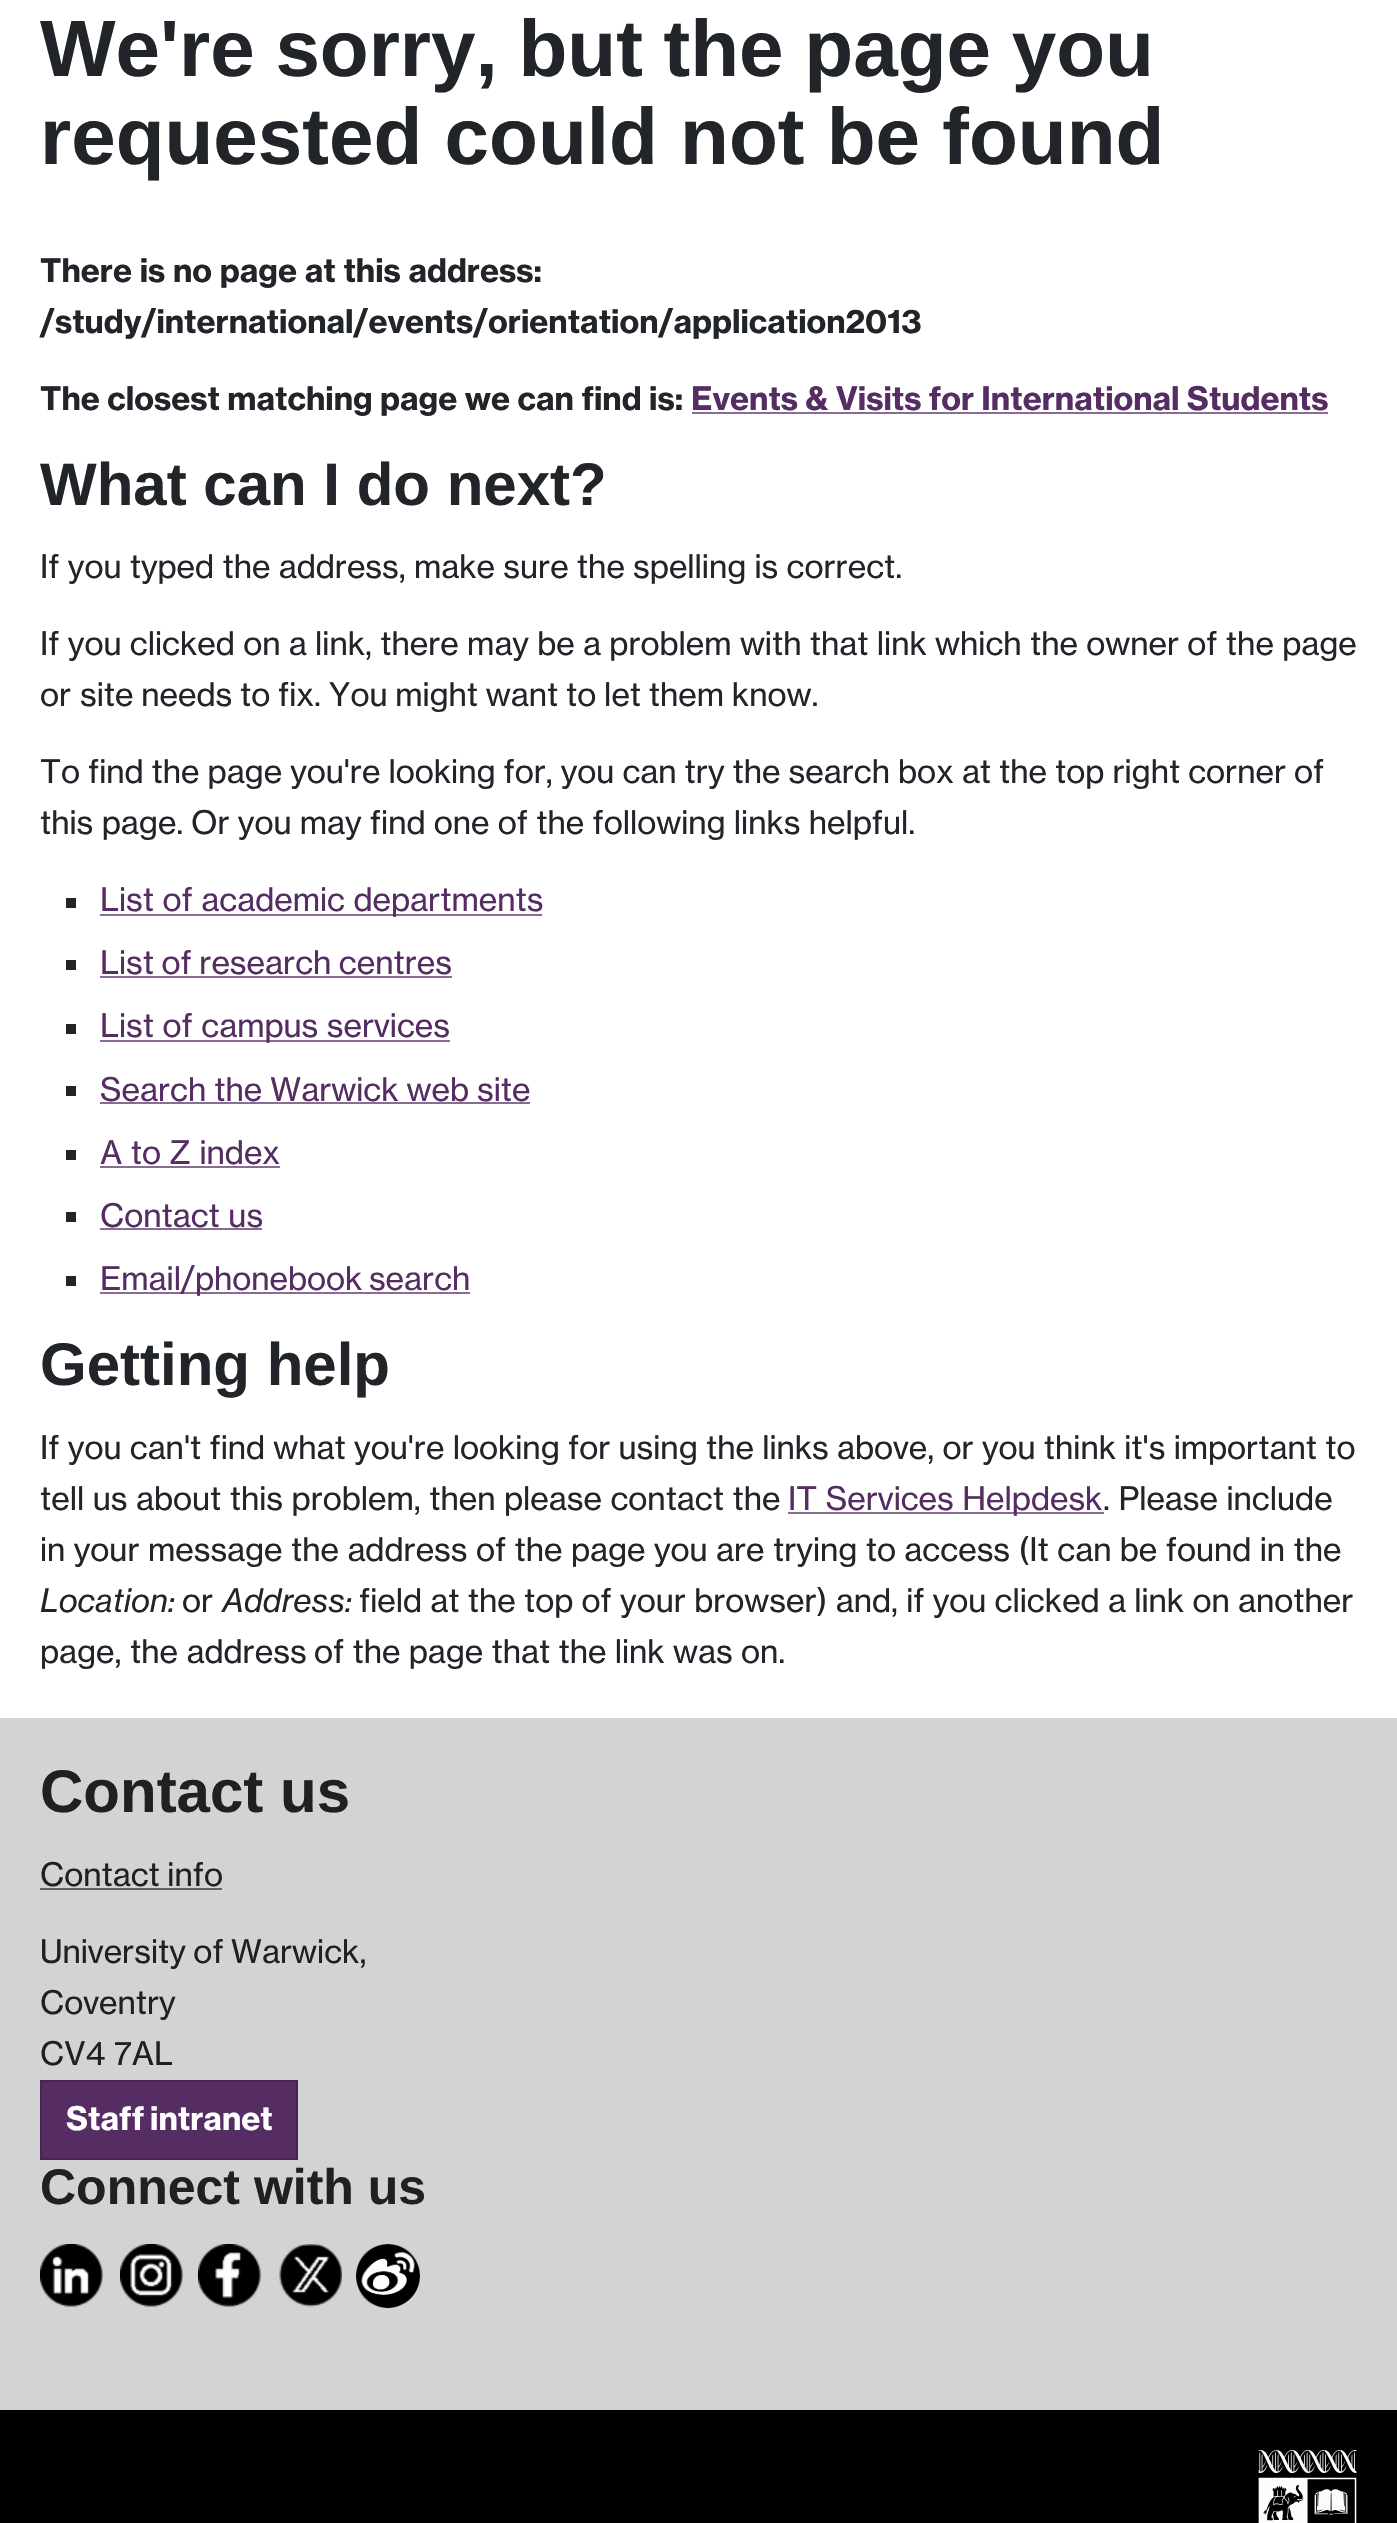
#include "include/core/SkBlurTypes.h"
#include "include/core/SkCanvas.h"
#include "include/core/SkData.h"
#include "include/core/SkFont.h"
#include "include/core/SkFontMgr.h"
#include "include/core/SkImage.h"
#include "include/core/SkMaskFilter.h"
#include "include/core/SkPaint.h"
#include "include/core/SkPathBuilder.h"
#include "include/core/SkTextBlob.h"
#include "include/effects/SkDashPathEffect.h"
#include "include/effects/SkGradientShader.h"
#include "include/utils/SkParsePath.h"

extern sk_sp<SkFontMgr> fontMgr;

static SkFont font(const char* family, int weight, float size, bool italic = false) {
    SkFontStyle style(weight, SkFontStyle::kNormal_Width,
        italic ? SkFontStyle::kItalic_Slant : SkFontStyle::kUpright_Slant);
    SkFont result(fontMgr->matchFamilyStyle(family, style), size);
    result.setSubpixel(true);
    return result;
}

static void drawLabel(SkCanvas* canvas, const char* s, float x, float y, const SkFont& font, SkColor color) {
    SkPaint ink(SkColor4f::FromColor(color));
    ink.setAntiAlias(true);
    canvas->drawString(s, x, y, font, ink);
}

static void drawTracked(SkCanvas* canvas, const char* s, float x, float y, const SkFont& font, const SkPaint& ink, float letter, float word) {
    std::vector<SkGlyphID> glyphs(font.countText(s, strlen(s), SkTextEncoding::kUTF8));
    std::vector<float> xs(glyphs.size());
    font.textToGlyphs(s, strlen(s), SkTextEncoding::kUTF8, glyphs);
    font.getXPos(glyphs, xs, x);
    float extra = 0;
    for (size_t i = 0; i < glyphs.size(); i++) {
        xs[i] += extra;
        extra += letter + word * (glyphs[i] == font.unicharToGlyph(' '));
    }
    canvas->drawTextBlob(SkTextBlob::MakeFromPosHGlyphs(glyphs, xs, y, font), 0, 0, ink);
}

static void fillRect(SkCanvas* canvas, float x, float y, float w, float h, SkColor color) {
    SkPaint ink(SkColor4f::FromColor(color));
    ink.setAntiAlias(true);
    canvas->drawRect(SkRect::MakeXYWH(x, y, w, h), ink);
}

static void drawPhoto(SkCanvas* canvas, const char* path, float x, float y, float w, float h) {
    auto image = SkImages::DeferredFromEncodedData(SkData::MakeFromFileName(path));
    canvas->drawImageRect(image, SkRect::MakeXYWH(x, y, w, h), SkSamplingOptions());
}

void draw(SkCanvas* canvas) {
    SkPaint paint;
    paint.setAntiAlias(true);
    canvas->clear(0xFFD3D3D3);
    fillRect(canvas, 0, 0, 1397, 1718, 0xFFFFFFFF);
    SkFont font1 = font("Liberation Sans", 700, 80);
    paint.setColor(0xFF212529);
    drawTracked(canvas, "We're sorry, but the page you", 40, 76, font1, paint, 0, -1.5f);
    drawLabel(canvas, "requested could not be found", 40, 164, font1, 0xFF212529);
    SkFont font2 = font("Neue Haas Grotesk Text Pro", 700, 32);
    drawLabel(canvas, "There is no page at this address:", 40, 282, font2, 0xFF212529);
    drawLabel(canvas, "/study/international/events/orientation/application2013", 40, 333, font2, 0xFF212529);
    drawTracked(canvas, "The closest matching page we can find is:", 40, 410, font2, paint, 0, -0.25f);
    paint.setColor(0xFF552D62);
    drawTracked(canvas, "Events & Visits for International Students", 691, 410, font2, paint, 0, -0.5f);
    fillRect(canvas, 692, 412, 636, 2, 0xFF886C91);
    SkFont font3 = font("Liberation Sans", 700, 60);
    drawLabel(canvas, "What can I do next?", 40, 505, font3, 0xFF212529);
    SkFont font4 = font("Neue Haas Grotesk Text Pro", 400, 32);
    paint.setColor(0xFF212529);
    drawTracked(canvas, "If you typed the address, make sure the spelling is correct.", 40, 578, font4, paint, 0, -0.25f);
    drawTracked(canvas, "If you clicked on a link, there may be a problem with that link which the owner of the page", 40, 655, font4, paint, 0, -0.2f);
    drawLabel(canvas, "or", 40, 706, font4, 0xFF212529);
    drawTracked(canvas, "site needs to fix. You might want to let them know.", 80, 706, font4, paint, 0, -0.75f);
    drawTracked(canvas, "To find the page you're looking for, you can try the search box at the top right corner of", 40, 783, font4, paint, 0, -0.5f);
    drawLabel(canvas, "this page.", 40, 834, font4, 0xFF212529);
    drawTracked(canvas, "Or you may find one of the following links helpful.", 191, 834, font4, paint, 0, -0.25f);
    fillRect(canvas, 66, 898, 10, 10, 0xFF212529);
    fillRect(canvas, 100, 914, 442, 2, 0xFF886C91);
    drawLabel(canvas, "List of academic departments", 100, 911, font4, 0xFF552D62);
    fillRect(canvas, 66, 960, 10, 10, 0xFF212529);
    paint.setColor(0xFF552D62);
    drawTracked(canvas, "List of research centres", 100, 974, font4, paint, 0, -1);
    fillRect(canvas, 100, 976, 352, 2, 0xFF886C91);
    fillRect(canvas, 66, 1024, 10, 10, 0xFF212529);
    fillRect(canvas, 100, 1040, 350, 2, 0xFF886C91);
    drawLabel(canvas, "List of campus services", 100, 1037, font4, 0xFF552D62);
    fillRect(canvas, 66, 1086, 10, 10, 0xFF212529);
    drawTracked(canvas, "Search the Warwick web site", 100, 1101, font4, paint, 0, -0.5f);
    fillRect(canvas, 100, 1102, 430, 2, 0xFF886C91);
    fillRect(canvas, 66, 1150, 10, 10, 0xFF212529);
    drawLabel(canvas, "A to Z index", 100, 1164, font4, 0xFF552D62);
    fillRect(canvas, 100, 1166, 180, 2, 0xFF886C91);
    fillRect(canvas, 66, 1212, 10, 10, 0xFF212529);
    drawLabel(canvas, "Contact us", 100, 1227, font4, 0xFF552D62);
    fillRect(canvas, 100, 1228, 162, 2, 0xFF886C91);
    fillRect(canvas, 66, 1276, 10, 10, 0xFF212529);
    fillRect(canvas, 100, 1292, 370, 2, 0xFF886C91);
    drawTracked(canvas, "Email/phonebook search", 100, 1290, font4, paint, 0, -2);
    drawLabel(canvas, "Getting help", 40, 1385, font3, 0xFF212529);
    paint.setColor(0xFF212529);
    drawTracked(canvas, "If you can't find what you're looking for using the links above, or you think it's important to", 40, 1459, font4, paint, 0, -0.25f);
    drawLabel(canvas, "tell us about this problem, then please contact the", 40, 1510, font4, 0xFF212529);
    fillRect(canvas, 788, 1512, 316, 2, 0xFF886C91);
    drawLabel(canvas, "IT Services Helpdesk", 788, 1510, font4, 0xFF552D62);
    drawLabel(canvas, ". Please include", 1103, 1510, font4, 0xFF212529);
    drawTracked(canvas, "in your message the address of the page you are trying to access (It can be found in the", 40, 1561, font4, paint, 0, -0.1f);
    SkFont font5 = font("Neue Haas Grotesk Text Pro", 400, 32, true);
    drawLabel(canvas, "Location:", 40, 1612, font5, 0xFF212529);
    drawLabel(canvas, "or", 182, 1612, font4, 0xFF212529);
    drawLabel(canvas, "Address:", 222, 1612, font5, 0xFF212529);
    drawTracked(canvas, "field at the top of your browser) and, if you clicked a link on another", 359, 1612, font4, paint, 0, -0.25f);
    drawLabel(canvas, "page, the address", 40, 1663, font4, 0xFF212529);
    drawTracked(canvas, "of the page that the link was on.", 314, 1663, font4, paint, 0, -0.25f);
    drawLabel(canvas, "Contact us", 40, 1812, font3, 0xFF202020);
    paint.setColor(0xFF202020);
    drawTracked(canvas, "Contact info", 40, 1886, font4, paint, 0, -1);
    fillRect(canvas, 40, 1888, 182, 2, 0xFF636363);
    drawTracked(canvas, "University of Warwick,", 40, 1963, font4, paint, 0, -1);
    drawLabel(canvas, "Coventry", 40, 2014, font4, 0xFF202020);
    drawLabel(canvas, "CV4 7AL", 40, 2065, font4, 0xFF202020);
    paint.setColor(0xFF552D62);
    canvas->drawRect(SkRect::MakeXYWH(41, 2081, 256, 78), paint);
    paint.setStroke(true);
    paint.setStrokeWidth(2);
    paint.setColor(0xFF462551);
    canvas->drawRect(SkRect::MakeXYWH(41, 2081, 256, 78), paint);
    paint.setStroke(false);
    paint.setColor(0xFFFFFFFF);
    drawTracked(canvas, "Staff intranet", 66, 2130, font2, paint, 0, -2);
    SkFont font6 = font("Liberation Sans", 700, 50);
    drawLabel(canvas, "Connect with us", 40, 2204, font6, 0xFF202020);
    drawPhoto(canvas, "assets/img1.png", 40, 2244, 63, 63);
    drawPhoto(canvas, "assets/img2.png", 120, 2244, 63, 63);
    drawPhoto(canvas, "assets/img3.png", 198, 2244, 63, 63);
    drawPhoto(canvas, "assets/img4.png", 279, 2244, 63, 63);
    drawPhoto(canvas, "assets/img5.png", 356, 2244, 64, 64);
    fillRect(canvas, 0, 2410, 1397, 113, 0xFF000000);
    drawPhoto(canvas, "assets/img6.png", 1258, 2450, 99, 73);
}
